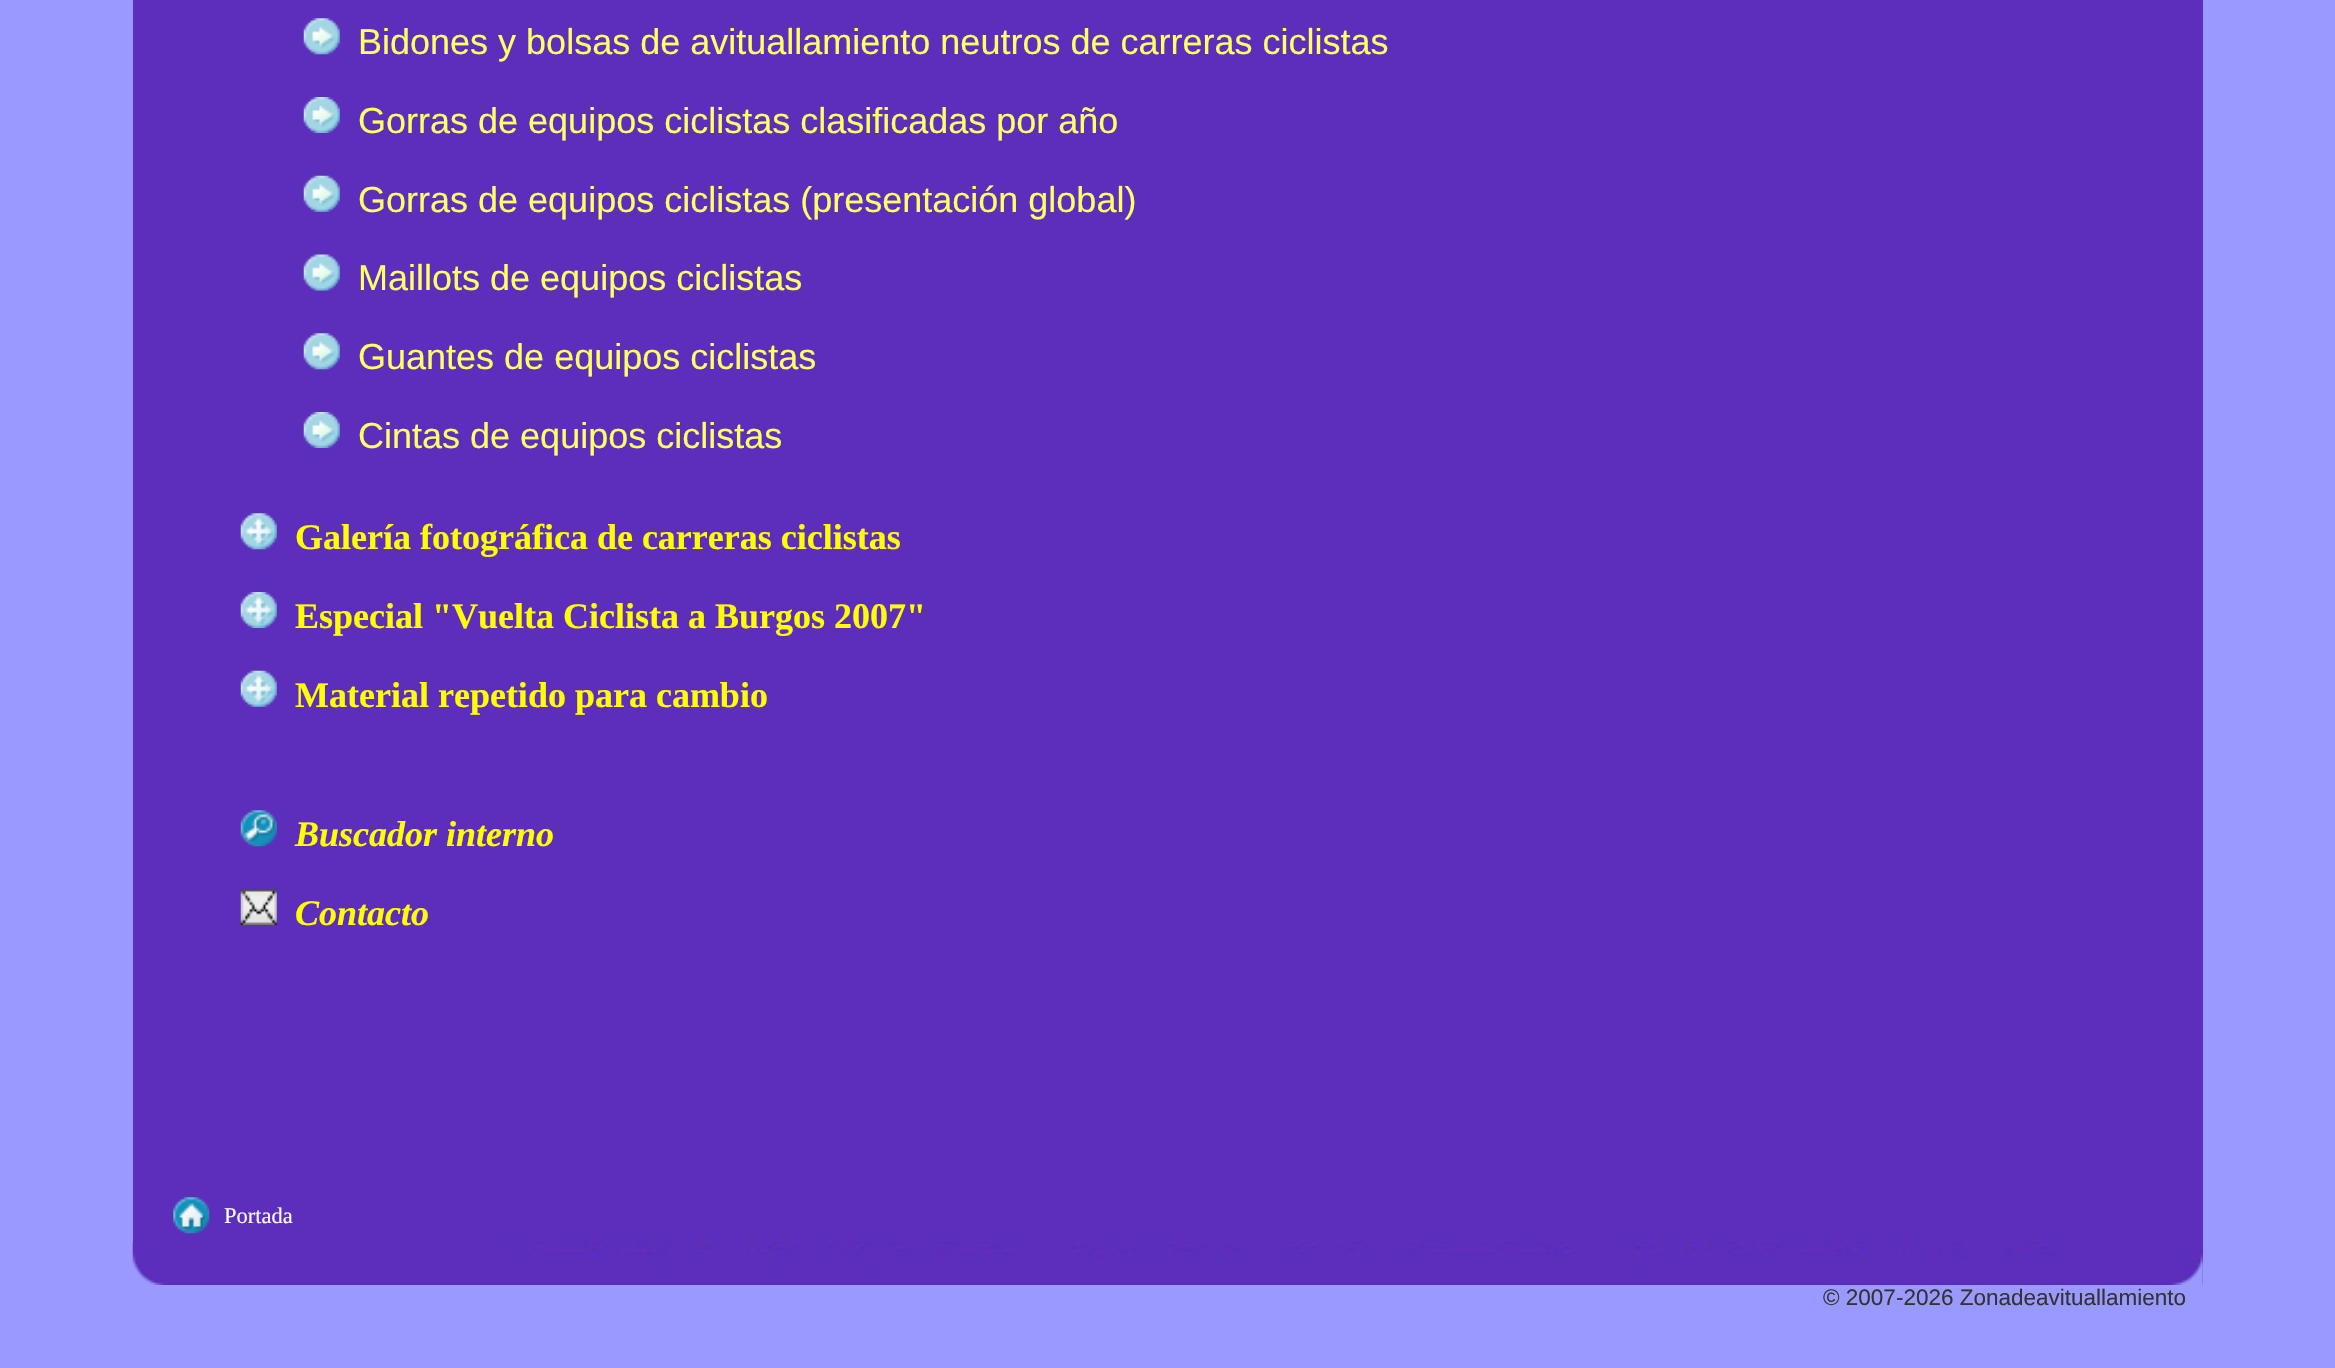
#include "include/core/SkBlurTypes.h"
#include "include/core/SkCanvas.h"
#include "include/core/SkData.h"
#include "include/core/SkFont.h"
#include "include/core/SkFontMgr.h"
#include "include/core/SkImage.h"
#include "include/core/SkMaskFilter.h"
#include "include/core/SkPaint.h"
#include "include/core/SkPathBuilder.h"
#include "include/core/SkTextBlob.h"
#include "include/effects/SkDashPathEffect.h"
#include "include/effects/SkGradientShader.h"
#include "include/utils/SkParsePath.h"

extern sk_sp<SkFontMgr> fontMgr;

static SkFont font(const char* family, int weight, float size, bool italic = false) {
    SkFontStyle style(weight, SkFontStyle::kNormal_Width,
        italic ? SkFontStyle::kItalic_Slant : SkFontStyle::kUpright_Slant);
    SkFont result(fontMgr->matchFamilyStyle(family, style), size);
    result.setSubpixel(true);
    return result;
}

static void drawLabel(SkCanvas* canvas, const char* s, float x, float y, const SkFont& font, SkColor color) {
    SkPaint ink(SkColor4f::FromColor(color));
    ink.setAntiAlias(true);
    canvas->drawString(s, x, y, font, ink);
}

static void fillRect(SkCanvas* canvas, float x, float y, float w, float h, SkColor color) {
    SkPaint ink(SkColor4f::FromColor(color));
    ink.setAntiAlias(true);
    canvas->drawRect(SkRect::MakeXYWH(x, y, w, h), ink);
}

static void drawPhoto(SkCanvas* canvas, const char* path, float x, float y, float w, float h) {
    auto image = SkImages::DeferredFromEncodedData(SkData::MakeFromFileName(path));
    canvas->drawImageRect(image, SkRect::MakeXYWH(x, y, w, h), SkSamplingOptions());
}

void draw(SkCanvas* canvas) {
    SkPaint paint;
    paint.setAntiAlias(true);
    canvas->clear(0xFF9999FF);
    fillRect(canvas, 133, 0, 2070, 1285, 0xFF5D2EBB);
    drawPhoto(canvas, "assets/img1.png", 303, 18, 37, 37);
    SkFont font1 = font("Liberation Sans", 400, 36);
    drawLabel(canvas, "Bidones y bolsas de avituallamiento neutros de carreras ciclistas", 358, 54, font1, 0xFFFFFF66);
    drawPhoto(canvas, "assets/img2.png", 303, 97, 37, 36);
    drawLabel(canvas, "Gorras de equipos ciclistas clasificadas por año", 358, 133, font1, 0xFFFFFF66);
    drawPhoto(canvas, "assets/img3.png", 303, 175, 37, 37);
    drawLabel(canvas, "Gorras de equipos ciclistas (presentación global)", 358, 212, font1, 0xFFFFFF66);
    drawPhoto(canvas, "assets/img4.png", 303, 254, 37, 37);
    drawLabel(canvas, "Maillots de equipos ciclistas", 358, 290, font1, 0xFFFFFF66);
    drawPhoto(canvas, "assets/img5.png", 303, 333, 37, 37);
    drawLabel(canvas, "Guantes de equipos ciclistas", 358, 369, font1, 0xFFFFFF66);
    drawPhoto(canvas, "assets/img6.png", 303, 412, 37, 36);
    drawLabel(canvas, "Cintas de equipos ciclistas", 358, 448, font1, 0xFFFFFF66);
    drawPhoto(canvas, "assets/img7.png", 240, 513, 37, 37);
    SkFont font2 = font("Liberation Serif", 700, 36);
    drawLabel(canvas, "Galería fotográfica de carreras ciclistas", 295, 549, font2, 0xFFFFFF00);
    drawPhoto(canvas, "assets/img8.png", 240, 592, 37, 36);
    drawLabel(canvas, "Especial \"Vuelta Ciclista a Burgos 2007\"", 295, 628, font2, 0xFFFFFF00);
    drawPhoto(canvas, "assets/img9.png", 240, 670, 37, 37);
    drawLabel(canvas, "Material repetido para cambio", 295, 707, font2, 0xFFFFFF00);
    drawPhoto(canvas, "assets/img10.png", 240, 810, 37, 37);
    SkFont font3 = font("Liberation Serif", 700, 36, true);
    drawLabel(canvas, "Buscador interno", 295, 846, font3, 0xFFFFFF00);
    drawPhoto(canvas, "assets/img11.png", 240, 889, 37, 36);
    drawLabel(canvas, "Contacto", 295, 925, font3, 0xFFFFFF00);
    drawPhoto(canvas, "assets/img12.png", 173, 1197, 37, 37);
    SkFont font4 = font("Liberation Serif", 400, 22.5f);
    drawLabel(canvas, "Portada", 224, 1223, font4, 0xFFFFFFFF);
    drawPhoto(canvas, "assets/img13.png", 132, 1242, 2071, 43);
    SkFont font5 = font("Liberation Sans", 400, 22.5f);
    drawLabel(canvas, "© 2007-2026 Zonadeavituallamiento", 1823, 1305, font5, 0xFF333333);
}
